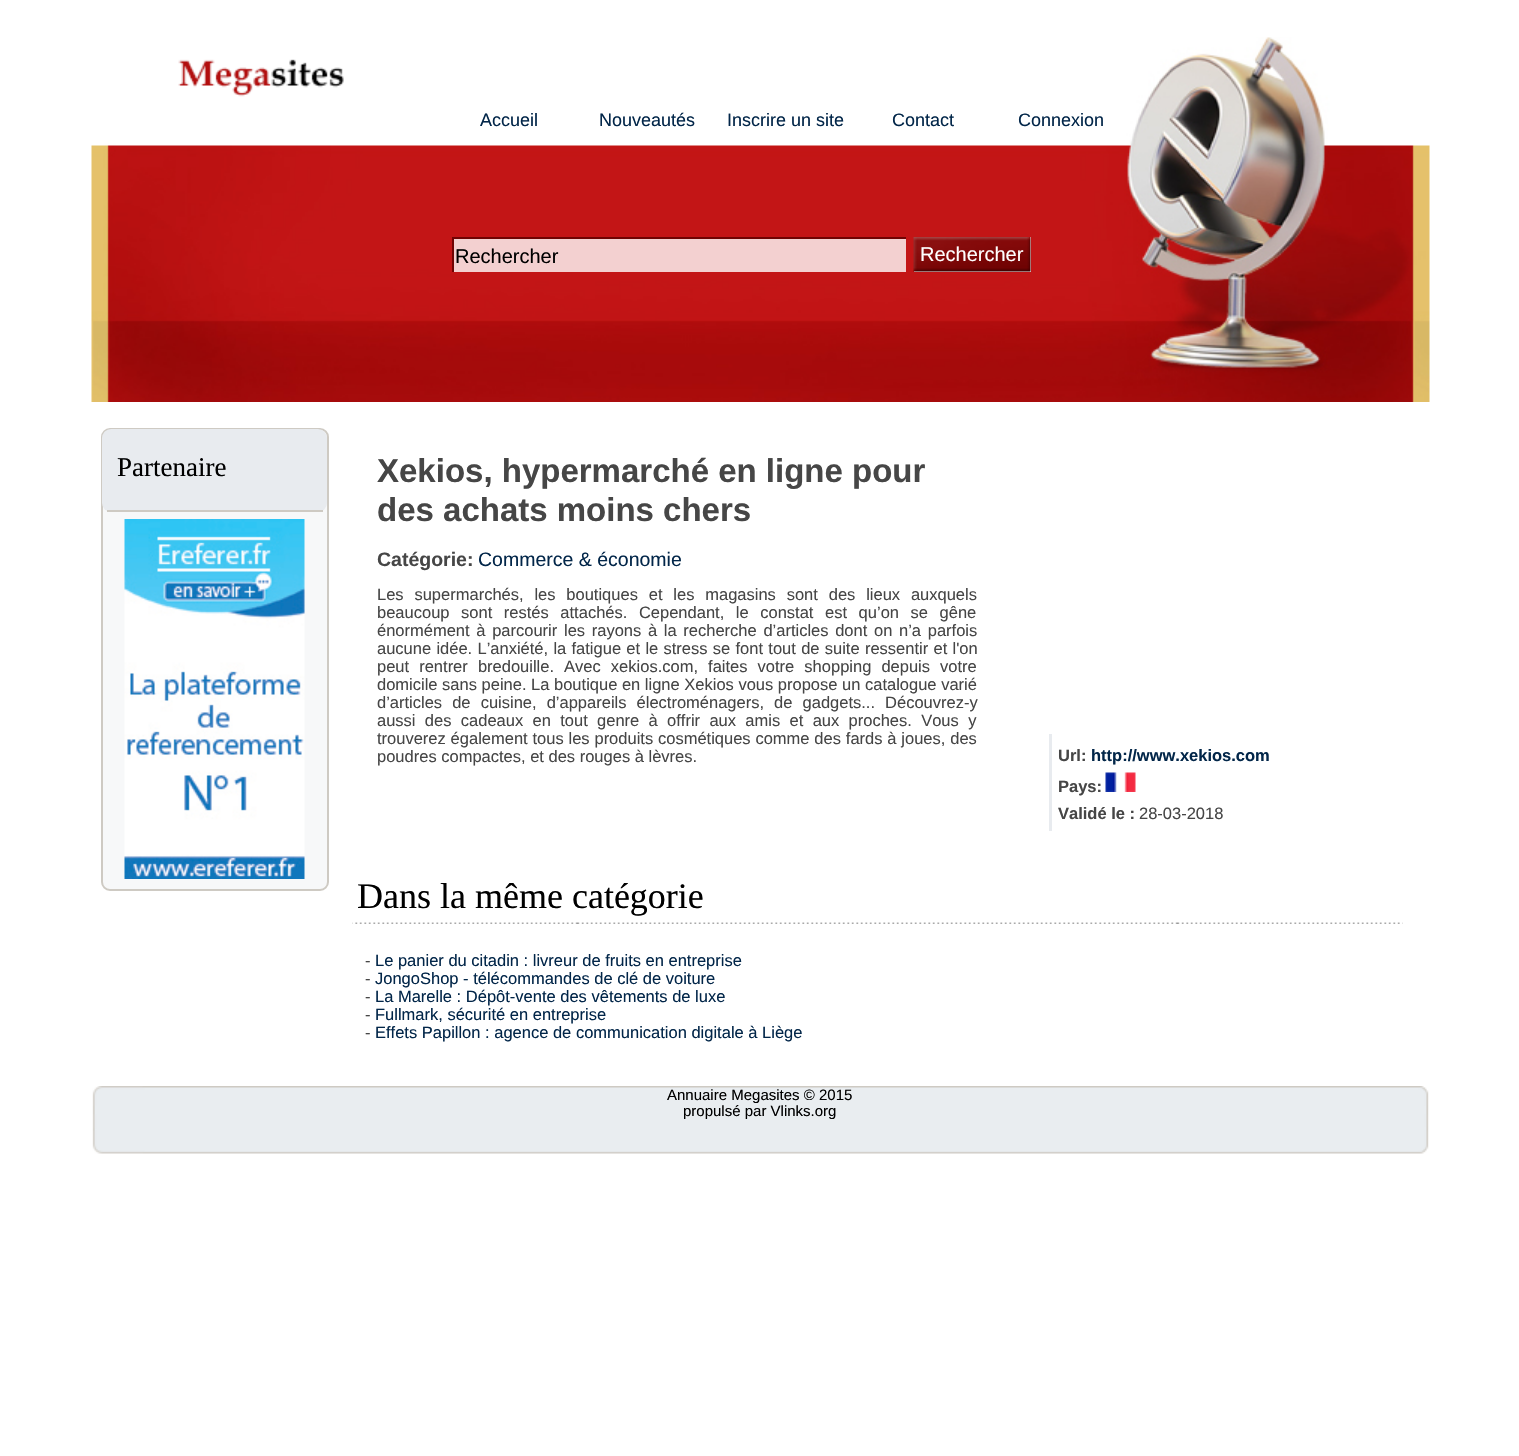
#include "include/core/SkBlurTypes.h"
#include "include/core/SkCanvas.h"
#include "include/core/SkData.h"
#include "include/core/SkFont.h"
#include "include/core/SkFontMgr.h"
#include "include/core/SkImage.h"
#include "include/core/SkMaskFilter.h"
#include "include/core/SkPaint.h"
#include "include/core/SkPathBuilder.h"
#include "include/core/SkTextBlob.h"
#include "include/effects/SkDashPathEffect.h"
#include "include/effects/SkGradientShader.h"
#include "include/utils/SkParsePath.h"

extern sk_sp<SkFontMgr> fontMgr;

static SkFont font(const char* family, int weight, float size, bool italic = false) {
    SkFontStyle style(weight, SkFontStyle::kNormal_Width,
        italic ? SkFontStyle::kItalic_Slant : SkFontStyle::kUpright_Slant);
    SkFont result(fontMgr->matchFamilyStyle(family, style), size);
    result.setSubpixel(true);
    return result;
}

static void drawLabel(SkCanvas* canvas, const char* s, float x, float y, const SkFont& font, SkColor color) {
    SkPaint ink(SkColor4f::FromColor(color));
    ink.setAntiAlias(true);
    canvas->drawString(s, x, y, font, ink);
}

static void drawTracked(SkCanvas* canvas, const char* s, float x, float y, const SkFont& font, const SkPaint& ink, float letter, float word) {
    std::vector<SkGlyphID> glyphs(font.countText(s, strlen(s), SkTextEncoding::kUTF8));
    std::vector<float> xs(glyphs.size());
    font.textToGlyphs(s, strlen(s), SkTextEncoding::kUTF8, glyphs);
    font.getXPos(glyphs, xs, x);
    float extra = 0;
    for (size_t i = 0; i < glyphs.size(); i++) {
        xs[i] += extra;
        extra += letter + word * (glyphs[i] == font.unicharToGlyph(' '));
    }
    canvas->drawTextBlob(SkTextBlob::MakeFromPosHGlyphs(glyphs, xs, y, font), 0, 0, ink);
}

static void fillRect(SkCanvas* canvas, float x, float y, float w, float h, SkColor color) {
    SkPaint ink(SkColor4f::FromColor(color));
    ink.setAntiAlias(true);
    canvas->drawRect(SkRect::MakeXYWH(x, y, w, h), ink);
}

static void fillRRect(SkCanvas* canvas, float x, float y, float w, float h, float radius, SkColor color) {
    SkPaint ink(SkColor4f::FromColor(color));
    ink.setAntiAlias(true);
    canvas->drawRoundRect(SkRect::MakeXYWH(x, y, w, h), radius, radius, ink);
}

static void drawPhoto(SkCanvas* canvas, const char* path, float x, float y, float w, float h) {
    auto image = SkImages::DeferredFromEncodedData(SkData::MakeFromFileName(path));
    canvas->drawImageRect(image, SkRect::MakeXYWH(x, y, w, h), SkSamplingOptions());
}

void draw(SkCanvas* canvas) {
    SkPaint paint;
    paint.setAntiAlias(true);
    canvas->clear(0xFFFFFFFF);
    drawPhoto(canvas, "assets/img2.png", 91, 37, 1339, 365);
    drawPhoto(canvas, "assets/img1.png", 178, 59, 166, 38);
    SkFont font1 = font("Liberation Sans", 400, 18);
    drawLabel(canvas, "Accueil", 480, 126, font1, 0xFF022649);
    drawLabel(canvas, "Nouveautés", 599, 126, font1, 0xFF022649);
    drawLabel(canvas, "Inscrire un site", 727, 126, font1, 0xFF022649);
    drawLabel(canvas, "Contact", 892, 126, font1, 0xFF022649);
    drawLabel(canvas, "Connexion", 1018, 126, font1, 0xFF022649);
    fillRect(canvas, 454, 239, 452, 33, 0xFFF3D0D0);
    fillRect(canvas, 452, 237, 454, 2, 0xFF700303);
    fillRect(canvas, 452, 237, 2, 35, 0xFF700303);
    SkFont font2 = font("Liberation Sans", 400, 20);
    drawLabel(canvas, "Rechercher", 455, 263, font2, 0xFF000000);
    fillRect(canvas, 914, 237, 117, 35, 0xFFEFEFEF);
    drawPhoto(canvas, "assets/img3.png", 913, 237, 118, 35);
    drawLabel(canvas, "Rechercher", 920, 261, font2, 0xFFFFFFFF);
    paint.setColor(0xFFF7F8F9);
    canvas->drawRoundRect(SkRect::MakeXYWH(102, 429, 226, 461), 8, 8, paint);
    paint.setStroke(true);
    paint.setStrokeWidth(2);
    paint.setColor(0xFFCECAC3);
    canvas->drawRoundRect(SkRect::MakeXYWH(102, 429, 226, 461), 8, 8, paint);
    fillRRect(canvas, 102, 429, 225, 83, 9, 0xFFE8EBEF);
    fillRect(canvas, 107, 510, 216, 2, 0xFFCECAC3);
    SkFont font3 = font("Liberation Serif", 400, 27);
    drawLabel(canvas, "Partenaire", 117, 476, font3, 0xFF000000);
    drawPhoto(canvas, "assets/img4.png", 124, 519, 181, 360);
    SkFont font4 = font("Liberation Sans", 700, 33);
    drawLabel(canvas, "Xekios, hypermarché en ligne pour", 377, 482, font4, 0xFF464646);
    drawLabel(canvas, "des achats moins chers", 377, 521, font4, 0xFF464646);
    SkFont font5 = font("Liberation Sans", 700, 19.5f);
    drawLabel(canvas, "Catégorie:", 377, 566, font5, 0xFF464646);
    SkFont font6 = font("Liberation Sans", 400, 19.5f);
    drawLabel(canvas, "Commerce & économie", 478, 566, font6, 0xFF022649);
    SkFont font7 = font("Liberation Sans", 400, 16.5f);
    paint.setStroke(false);
    paint.setColor(0xFF464646);
    drawTracked(canvas, "Les supermarchés, les boutiques et les magasins sont des lieux auxquels", 377, 600, font7, paint, 0, 6.25f);
    drawTracked(canvas, "beaucoup sont restés attachés. Cependant, le constat est qu’on se gêne", 377, 618, font7, paint, 0, 7);
    drawTracked(canvas, "énormément à parcourir les rayons à la recherche d’articles dont on n’a parfois", 377, 636, font7, paint, 0, 2.1f);
    drawTracked(canvas, "aucune idée. L’anxiété, la fatigue et le stress se font tout de suite ressentir et l'on", 377, 654, font7, paint, 0, 0.7f);
    drawTracked(canvas, "peut rentrer bredouille. Avec xekios.com, faites votre shopping depuis votre", 377, 672, font7, paint, 0, 5.5f);
    drawLabel(canvas, "domicile sans peine. La boutique en ligne Xekios vous propose un catalogue varié", 377, 690, font7, 0xFF464646);
    drawTracked(canvas, "d’articles de cuisine, d’appareils électroménagers, de gadgets... Découvrez-y", 377, 708, font7, paint, 0, 5.5f);
    drawTracked(canvas, "aussi des cadeaux en tout genre à offrir aux amis et aux proches. Vous y", 377, 726, font7, paint, 0, 4.75f);
    drawTracked(canvas, "trouverez également tous les produits cosmétiques comme des fards à joues, des", 377, 744, font7, paint, 0, 0.25f);
    drawLabel(canvas, "poudres compactes, et des rouges à lèvres.", 377, 762, font7, 0xFF464646);
    fillRect(canvas, 1049, 734, 3, 97, 0xFFE8EBEF);
    SkFont font8 = font("Liberation Sans", 700, 16.5f);
    drawLabel(canvas, "Url:", 1058, 761, font8, 0xFF464646);
    drawLabel(canvas, "http://www.xekios.com", 1091, 761, font8, 0xFF022649);
    drawLabel(canvas, "Pays:", 1058, 792, font8, 0xFF464646);
    drawPhoto(canvas, "assets/img5.png", 1105, 772, 31, 20);
    drawLabel(canvas, "Validé le :", 1058, 819, font8, 0xFF464646);
    drawLabel(canvas, "28-03-2018", 1139, 819, font7, 0xFF464646);
    drawPhoto(canvas, "assets/img6.png", 352, 922, 1051, 2);
    SkFont font9 = font("Liberation Serif", 400, 36);
    drawLabel(canvas, "Dans la même catégorie", 357, 908, font9, 0xFF000000);
    drawLabel(canvas, "-", 365, 966, font7, 0xFF464646);
    drawLabel(canvas, "Le panier du citadin : livreur de fruits en entreprise", 375, 966, font7, 0xFF022649);
    drawLabel(canvas, "-", 365, 984, font7, 0xFF464646);
    drawLabel(canvas, "JongoShop - télécommandes de clé de voiture", 375, 984, font7, 0xFF022649);
    drawLabel(canvas, "-", 365, 1002, font7, 0xFF464646);
    drawLabel(canvas, "La Marelle : Dépôt-vente des vêtements de luxe", 375, 1002, font7, 0xFF022649);
    drawLabel(canvas, "-", 365, 1020, font7, 0xFF464646);
    drawLabel(canvas, "Fullmark, sécurité en entreprise", 375, 1020, font7, 0xFF022649);
    drawLabel(canvas, "-", 365, 1038, font7, 0xFF464646);
    drawLabel(canvas, "Effets Papillon : agence de communication digitale à Liège", 375, 1038, font7, 0xFF022649);
    drawPhoto(canvas, "assets/img7.png", 92, 1086, 1337, 68);
    SkFont font10 = font("Liberation Sans", 400, 15);
    drawLabel(canvas, "Annuaire Megasites © 2015", 667, 1100, font10, 0xFF000000);
    drawLabel(canvas, "propulsé par Vlinks.org", 683, 1116, font10, 0xFF000000);
}
